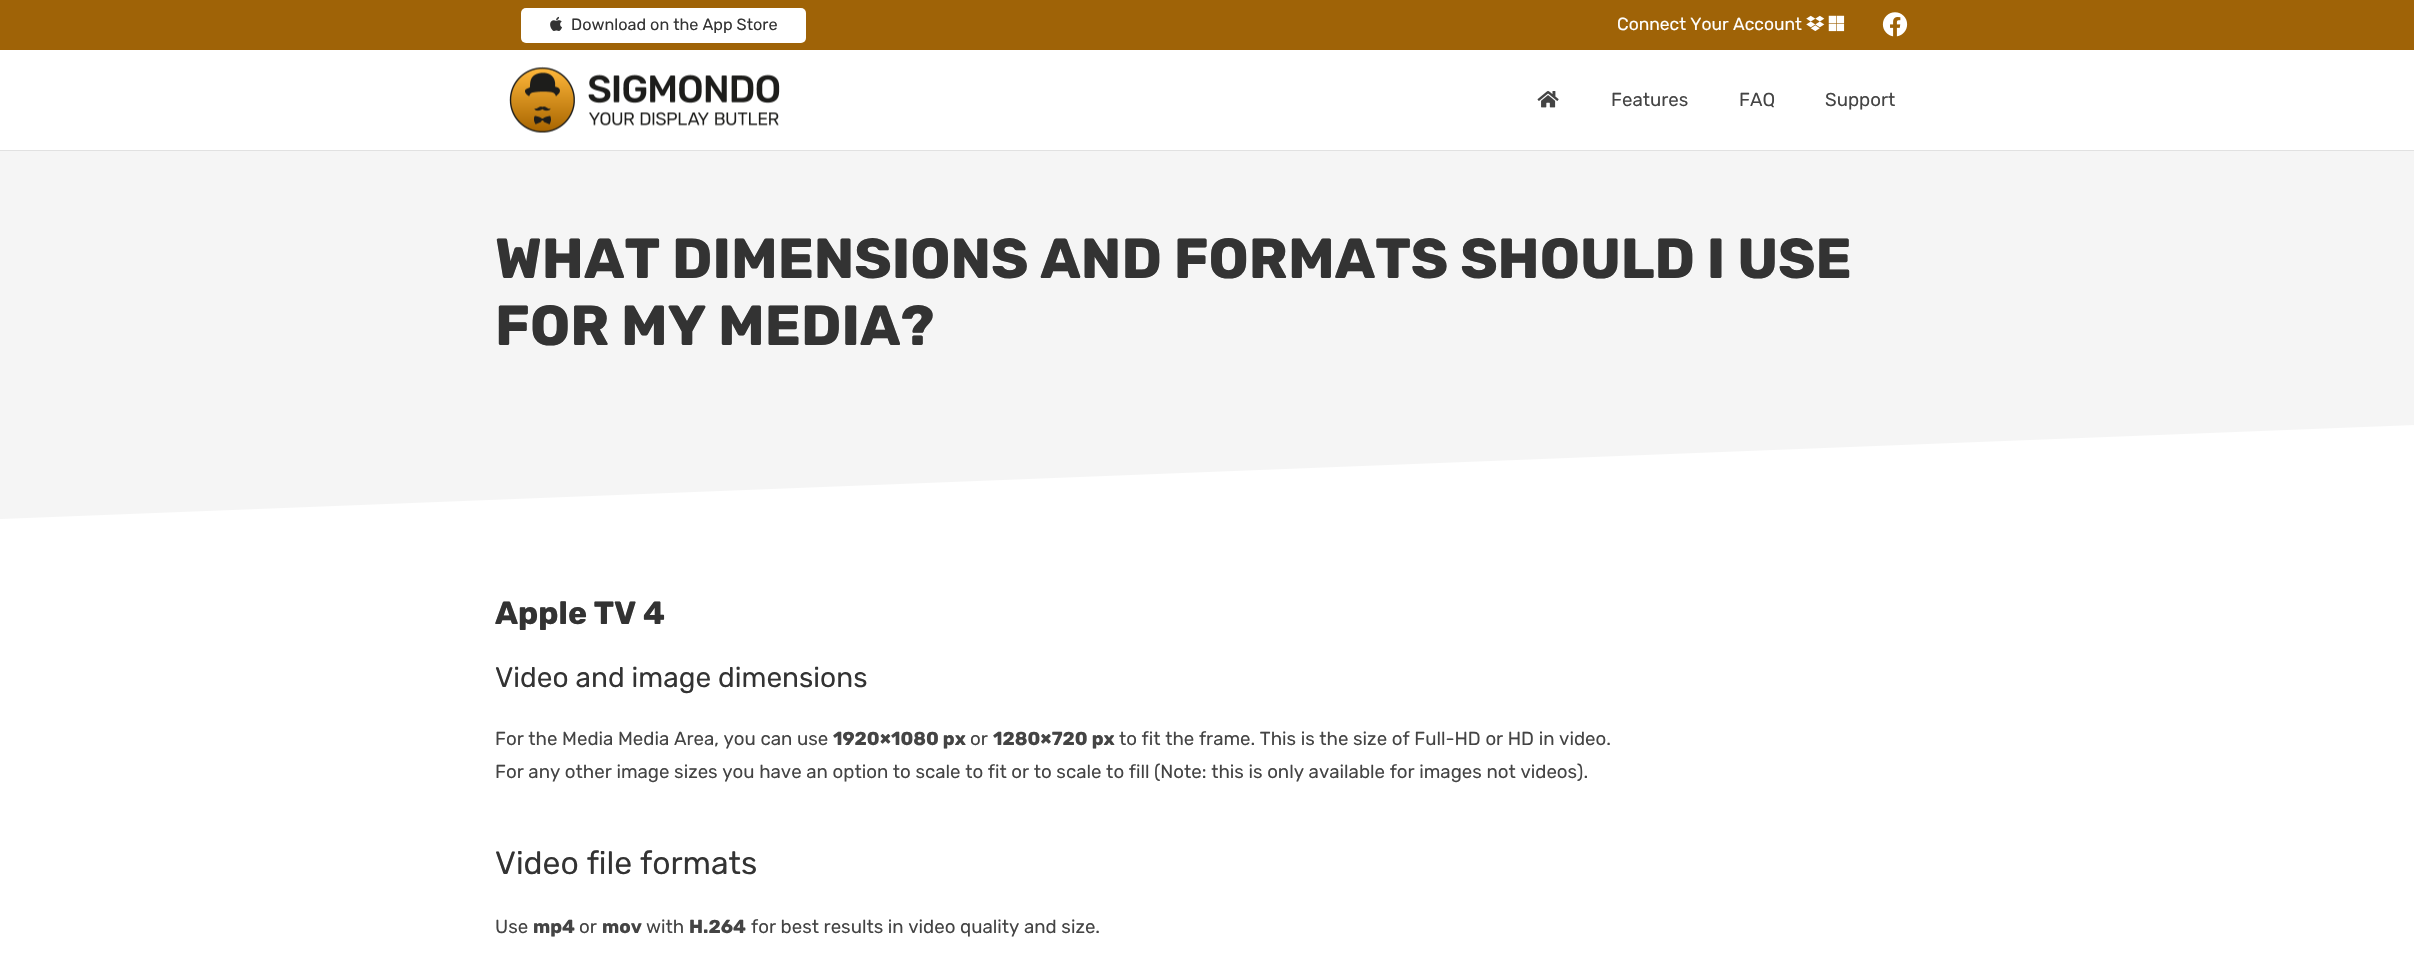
#include "include/core/SkBlurTypes.h"
#include "include/core/SkCanvas.h"
#include "include/core/SkData.h"
#include "include/core/SkFont.h"
#include "include/core/SkFontMgr.h"
#include "include/core/SkImage.h"
#include "include/core/SkMaskFilter.h"
#include "include/core/SkPaint.h"
#include "include/core/SkPathBuilder.h"
#include "include/core/SkTextBlob.h"
#include "include/effects/SkDashPathEffect.h"
#include "include/effects/SkGradientShader.h"
#include "include/utils/SkParsePath.h"

extern sk_sp<SkFontMgr> fontMgr;

static SkFont font(const char* family, int weight, float size, bool italic = false) {
    SkFontStyle style(weight, SkFontStyle::kNormal_Width,
        italic ? SkFontStyle::kItalic_Slant : SkFontStyle::kUpright_Slant);
    SkFont result(fontMgr->matchFamilyStyle(family, style), size);
    result.setSubpixel(true);
    return result;
}

static void drawLabel(SkCanvas* canvas, const char* s, float x, float y, const SkFont& font, SkColor color) {
    SkPaint ink(SkColor4f::FromColor(color));
    ink.setAntiAlias(true);
    canvas->drawString(s, x, y, font, ink);
}

static void fillRect(SkCanvas* canvas, float x, float y, float w, float h, SkColor color) {
    SkPaint ink(SkColor4f::FromColor(color));
    ink.setAntiAlias(true);
    canvas->drawRect(SkRect::MakeXYWH(x, y, w, h), ink);
}

static void fillRRect(SkCanvas* canvas, float x, float y, float w, float h, float radius, SkColor color) {
    SkPaint ink(SkColor4f::FromColor(color));
    ink.setAntiAlias(true);
    canvas->drawRoundRect(SkRect::MakeXYWH(x, y, w, h), radius, radius, ink);
}

static void drawPhoto(SkCanvas* canvas, const char* path, float x, float y, float w, float h) {
    auto image = SkImages::DeferredFromEncodedData(SkData::MakeFromFileName(path));
    canvas->drawImageRect(image, SkRect::MakeXYWH(x, y, w, h), SkSamplingOptions());
}

static SkPath parsePath(const char* data, bool evenOdd = false) {
    SkPath result = *SkParsePath::FromSVGString(data);
    if (evenOdd) result.setFillType(SkPathFillType::kEvenOdd);
    return result;
}

void draw(SkCanvas* canvas) {
    SkPaint paint;
    paint.setAntiAlias(true);
    canvas->clear(0xFFFFFFFF);
    fillRect(canvas, 0, 0, 2414, 50, 0xFF9F6307);
    fillRRect(canvas, 521, 8, 285, 35, 5, 0xFFFFFFFF);
    drawPhoto(canvas, "assets/img1.png", 550, 16, 12, 15);
    SkFont font1 = font("Rubik", 400, 16.25f);
    drawLabel(canvas, "Download on the App Store", 571, 30, font1, 0xFF333333);
    SkFont font2 = font("Rubik", 400, 17.5f);
    drawLabel(canvas, "Connect Your Account", 1617, 30, font2, 0xFFFFFFFF);
    drawPhoto(canvas, "assets/img2.png", 1806, 15, 19, 16);
    drawPhoto(canvas, "assets/img3.png", 1828, 15, 17, 17);
    drawPhoto(canvas, "assets/img4.png", 1882, 12, 26, 25);
    fillRect(canvas, 0, 150, 2414, 1, 0xFFE1E1E1);
    drawPhoto(canvas, "assets/img5.png", 509, 66, 271, 67);
    drawPhoto(canvas, "assets/img6.png", 1537, 91, 22, 17);
    SkFont font3 = font("Rubik", 400, 18.75f);
    drawLabel(canvas, "Features", 1611, 106, font3, 0xFF444444);
    drawLabel(canvas, "FAQ", 1739, 106, font3, 0xFF444444);
    drawLabel(canvas, "Support", 1825, 106, font3, 0xFF444444);
    fillRect(canvas, 0, 151, 2414, 368, 0xFFF5F5F5);
    SkFont font4 = font("Rubik", 700, 56.25f);
    drawLabel(canvas, "WHAT DIMENSIONS AND FORMATS SHOULD I USE", 495, 278, font4, 0xFF333333);
    drawLabel(canvas, "FOR MY MEDIA?", 495, 345, font4, 0xFF333333);
    canvas->save();
    canvas->clipRect(SkRect::MakeXYWH(0, 425, 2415, 96));
    paint.setColor(0xFFFFFFFF);
    canvas->drawPath(parsePath("M0 519V544H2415V425Z"), paint);
    canvas->restore();
    SkFont font5 = font("Rubik", 700, 32);
    drawLabel(canvas, "Apple TV 4", 495, 624, font5, 0xFF333333);
    SkFont font6 = font("Rubik", 400, 28.1f);
    drawLabel(canvas, "Video and image dimensions", 495, 687, font6, 0xFF333333);
    drawLabel(canvas, "For the Media Media Area, you can use", 495, 745, font3, 0xFF444444);
    SkFont font7 = font("Rubik", 700, 18.75f);
    drawLabel(canvas, "1920×1080 px", 833, 745, font7, 0xFF444444);
    drawLabel(canvas, "or", 970, 745, font3, 0xFF444444);
    drawLabel(canvas, "1280×720 px", 993, 745, font7, 0xFF444444);
    drawLabel(canvas, "to fit the frame. This is the size of Full-HD or HD in video.", 1119, 745, font3, 0xFF444444);
    drawLabel(canvas, "For any other image sizes you have an option to scale to fit or to scale to fill (Note: this is only available for images not videos).", 495, 778, font3, 0xFF444444);
    SkFont font8 = font("Rubik", 400, 32);
    drawLabel(canvas, "Video file formats", 495, 874, font8, 0xFF333333);
    drawLabel(canvas, "Use", 495, 933, font3, 0xFF444444);
    drawLabel(canvas, "mp4", 533, 933, font7, 0xFF444444);
    drawLabel(canvas, "or", 579, 933, font3, 0xFF444444);
    drawLabel(canvas, "mov", 602, 933, font7, 0xFF444444);
    drawLabel(canvas, "with", 646, 933, font3, 0xFF444444);
    drawLabel(canvas, "H.264", 689, 933, font7, 0xFF444444);
    drawLabel(canvas, "for best results in video quality and size.", 751, 933, font3, 0xFF444444);
}
